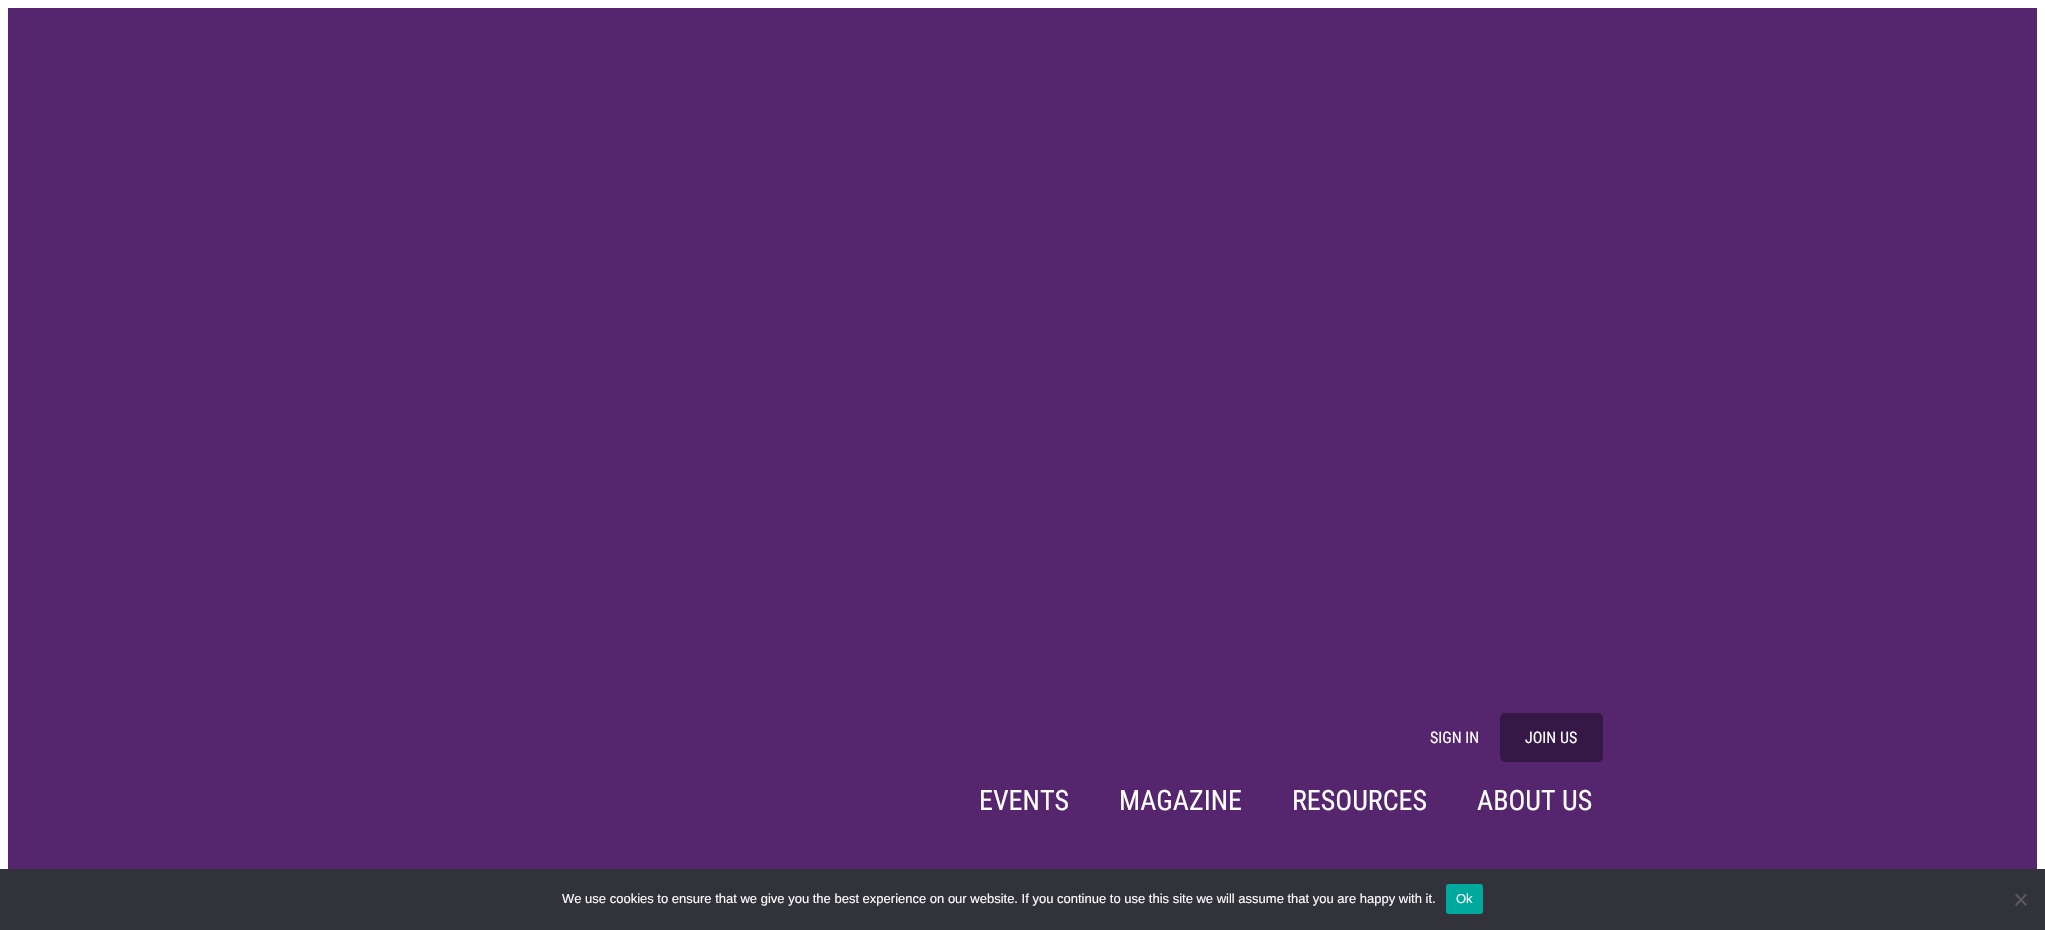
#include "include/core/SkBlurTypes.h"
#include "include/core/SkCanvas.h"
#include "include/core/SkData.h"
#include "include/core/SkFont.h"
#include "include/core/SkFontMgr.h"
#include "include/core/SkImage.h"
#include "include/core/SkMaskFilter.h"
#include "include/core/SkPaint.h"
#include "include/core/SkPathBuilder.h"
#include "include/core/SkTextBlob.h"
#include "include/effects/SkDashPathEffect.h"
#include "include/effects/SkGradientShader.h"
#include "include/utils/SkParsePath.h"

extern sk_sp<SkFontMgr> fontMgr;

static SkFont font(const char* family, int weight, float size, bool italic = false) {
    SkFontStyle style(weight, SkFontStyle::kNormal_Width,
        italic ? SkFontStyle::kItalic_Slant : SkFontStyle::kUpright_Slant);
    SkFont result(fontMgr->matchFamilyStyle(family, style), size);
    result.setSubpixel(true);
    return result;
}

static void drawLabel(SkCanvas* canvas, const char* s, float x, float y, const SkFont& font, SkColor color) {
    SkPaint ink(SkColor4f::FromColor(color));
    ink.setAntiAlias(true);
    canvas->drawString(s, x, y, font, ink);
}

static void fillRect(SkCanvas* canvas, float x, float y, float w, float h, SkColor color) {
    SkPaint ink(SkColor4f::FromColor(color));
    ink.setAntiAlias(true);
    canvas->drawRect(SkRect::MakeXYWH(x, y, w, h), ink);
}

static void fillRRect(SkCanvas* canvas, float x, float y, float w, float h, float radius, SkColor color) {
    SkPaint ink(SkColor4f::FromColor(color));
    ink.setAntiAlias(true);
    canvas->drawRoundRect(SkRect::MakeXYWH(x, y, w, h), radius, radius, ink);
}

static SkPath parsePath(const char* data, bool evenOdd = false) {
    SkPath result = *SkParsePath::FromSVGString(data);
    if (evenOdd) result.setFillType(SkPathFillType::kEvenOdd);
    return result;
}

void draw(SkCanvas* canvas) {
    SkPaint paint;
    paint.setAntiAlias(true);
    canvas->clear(0xFFFFFFFF);
    fillRect(canvas, 8, 8, 2029, 861, 0xFF55266E);
    SkFont font1 = font("Roboto Condensed", 400, 16);
    drawLabel(canvas, "SIGN IN", 1430, 743, font1, 0xFFFFFFFF);
    fillRRect(canvas, 1500, 713, 103, 49, 5, 0xFF361846);
    drawLabel(canvas, "JOIN US", 1525, 743, font1, 0xFFFFFFFF);
    SkFont font2 = font("Roboto Condensed", 400, 28);
    drawLabel(canvas, "EVENTS", 979, 810, font2, 0xFFFFFFFF);
    drawLabel(canvas, "MAGAZINE", 1119, 810, font2, 0xFFFFFFFF);
    drawLabel(canvas, "RESOURCES", 1292, 810, font2, 0xFFFFFFFF);
    drawLabel(canvas, "ABOUT US", 1477, 810, font2, 0xFFFFFFFF);
    fillRect(canvas, 0, 869, 2045, 61, 0xFF32323A);
    SkFont font3 = font("Liberation Sans", 400, 13);
    drawLabel(canvas, "We use cookies to ensure that we give you the best experience on our website. If you continue to use this site we will assume that you are happy with it.", 562, 903, font3, 0xFFFFFFFF);
    fillRRect(canvas, 1446, 884, 37, 30, 3, 0xFF00A99D);
    drawLabel(canvas, "Ok", 1456, 903, font3, 0xFFFFFFFF);
    paint.setColor(0xFF59595D);
    canvas->drawPath(parsePath("M2025.5 893.5L2027 895L2016.5 906L2015 904.5Z"), paint);
    canvas->drawPath(parsePath("M2015 895L2016.5 893.5L2027 904.5L2025.5 906Z"), paint);
}
